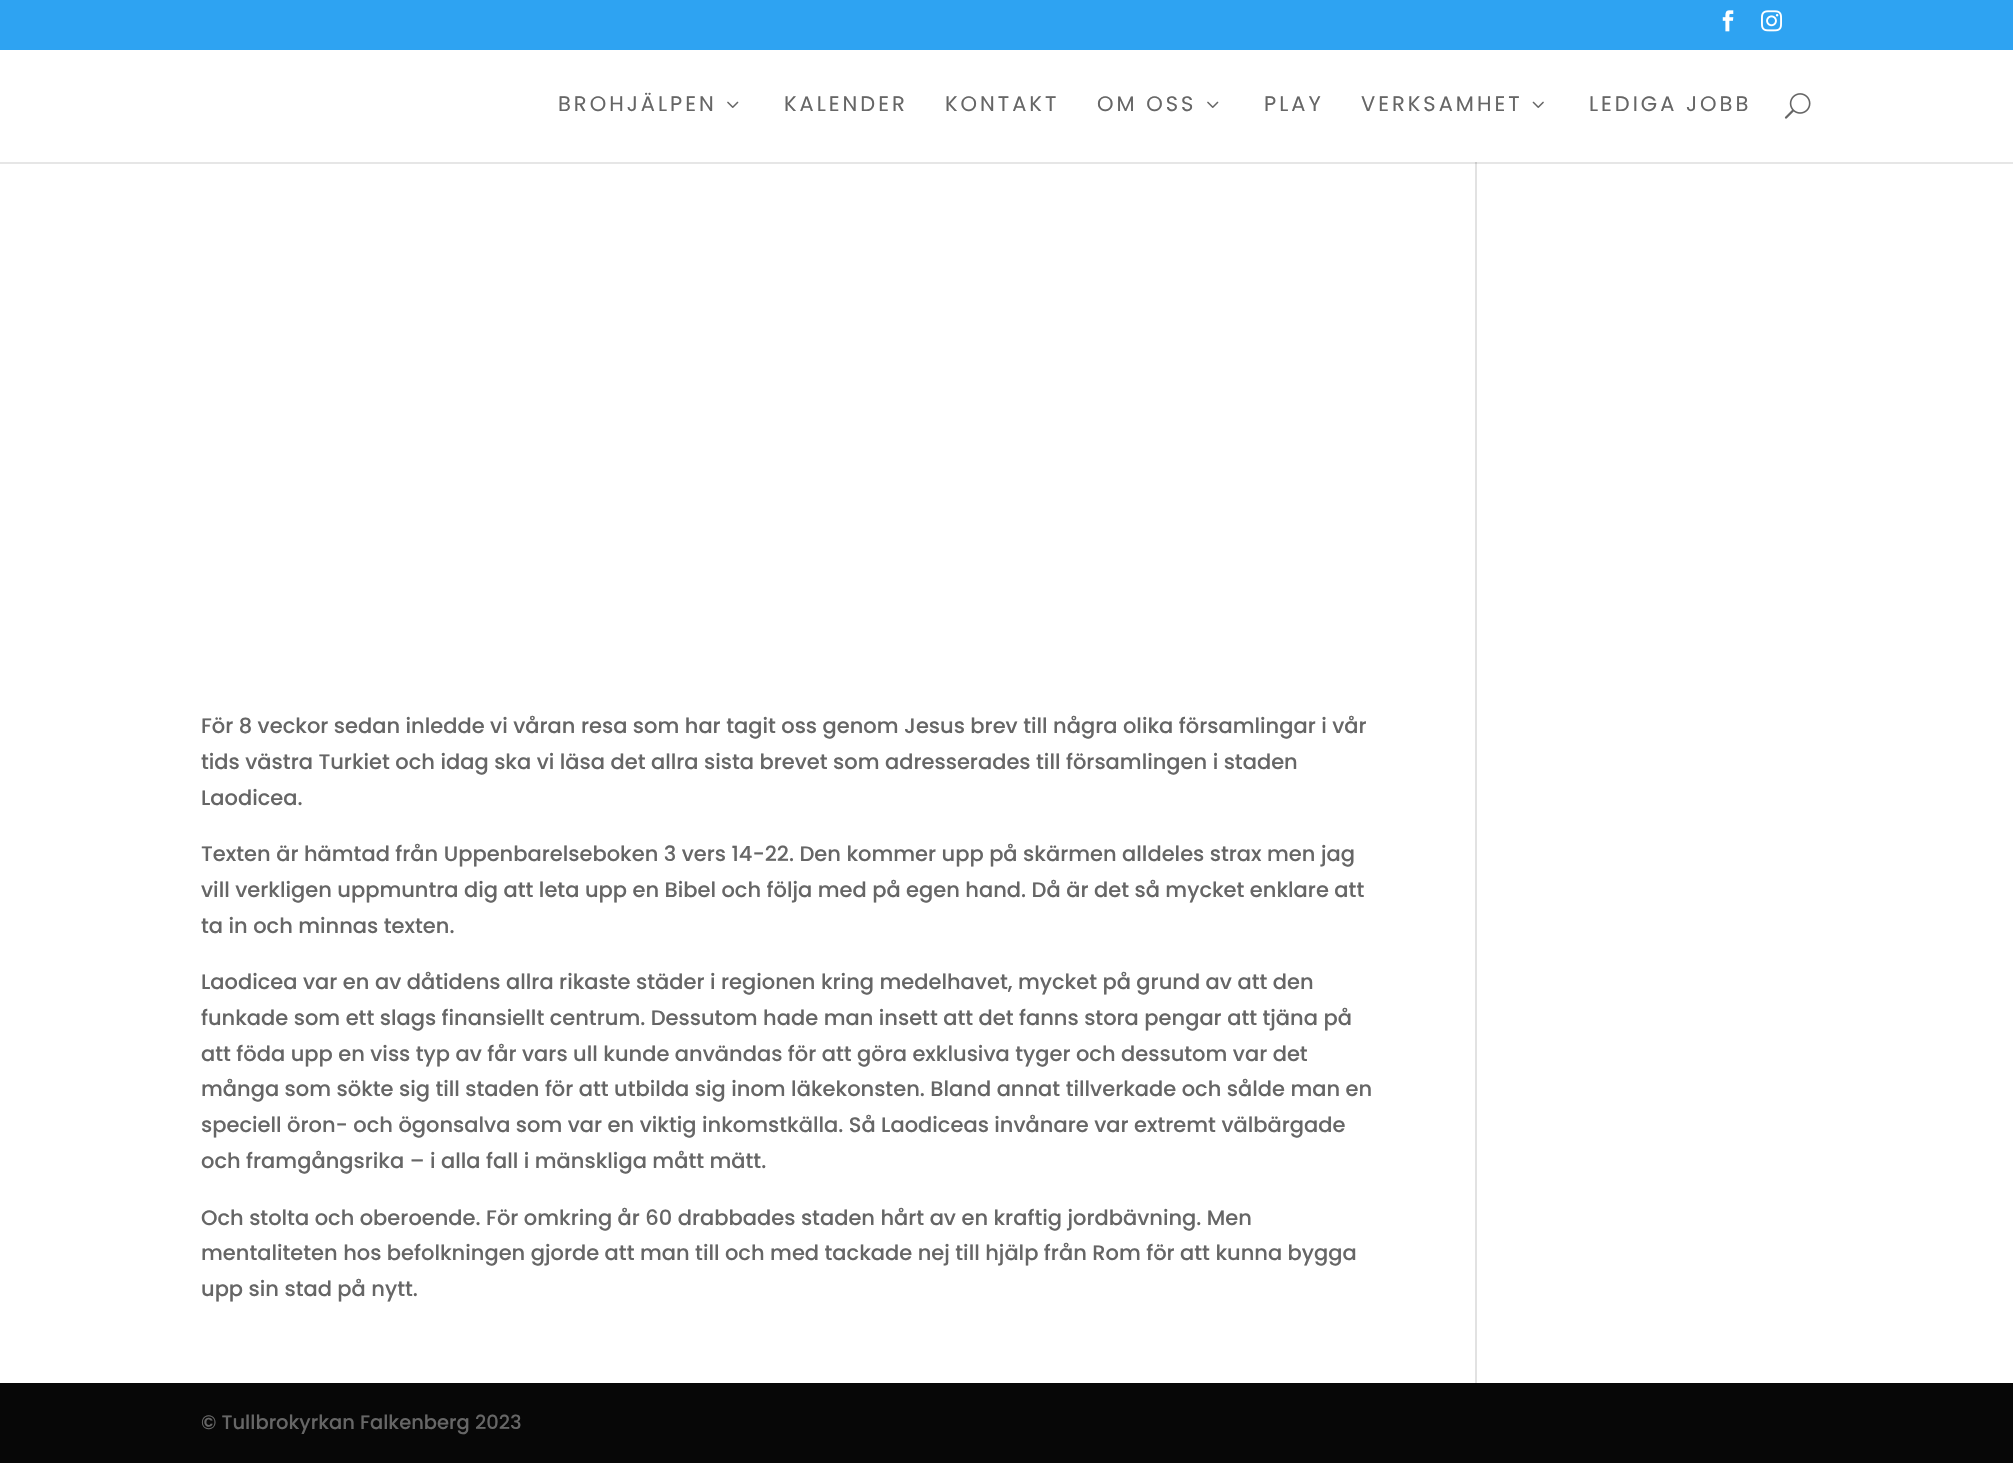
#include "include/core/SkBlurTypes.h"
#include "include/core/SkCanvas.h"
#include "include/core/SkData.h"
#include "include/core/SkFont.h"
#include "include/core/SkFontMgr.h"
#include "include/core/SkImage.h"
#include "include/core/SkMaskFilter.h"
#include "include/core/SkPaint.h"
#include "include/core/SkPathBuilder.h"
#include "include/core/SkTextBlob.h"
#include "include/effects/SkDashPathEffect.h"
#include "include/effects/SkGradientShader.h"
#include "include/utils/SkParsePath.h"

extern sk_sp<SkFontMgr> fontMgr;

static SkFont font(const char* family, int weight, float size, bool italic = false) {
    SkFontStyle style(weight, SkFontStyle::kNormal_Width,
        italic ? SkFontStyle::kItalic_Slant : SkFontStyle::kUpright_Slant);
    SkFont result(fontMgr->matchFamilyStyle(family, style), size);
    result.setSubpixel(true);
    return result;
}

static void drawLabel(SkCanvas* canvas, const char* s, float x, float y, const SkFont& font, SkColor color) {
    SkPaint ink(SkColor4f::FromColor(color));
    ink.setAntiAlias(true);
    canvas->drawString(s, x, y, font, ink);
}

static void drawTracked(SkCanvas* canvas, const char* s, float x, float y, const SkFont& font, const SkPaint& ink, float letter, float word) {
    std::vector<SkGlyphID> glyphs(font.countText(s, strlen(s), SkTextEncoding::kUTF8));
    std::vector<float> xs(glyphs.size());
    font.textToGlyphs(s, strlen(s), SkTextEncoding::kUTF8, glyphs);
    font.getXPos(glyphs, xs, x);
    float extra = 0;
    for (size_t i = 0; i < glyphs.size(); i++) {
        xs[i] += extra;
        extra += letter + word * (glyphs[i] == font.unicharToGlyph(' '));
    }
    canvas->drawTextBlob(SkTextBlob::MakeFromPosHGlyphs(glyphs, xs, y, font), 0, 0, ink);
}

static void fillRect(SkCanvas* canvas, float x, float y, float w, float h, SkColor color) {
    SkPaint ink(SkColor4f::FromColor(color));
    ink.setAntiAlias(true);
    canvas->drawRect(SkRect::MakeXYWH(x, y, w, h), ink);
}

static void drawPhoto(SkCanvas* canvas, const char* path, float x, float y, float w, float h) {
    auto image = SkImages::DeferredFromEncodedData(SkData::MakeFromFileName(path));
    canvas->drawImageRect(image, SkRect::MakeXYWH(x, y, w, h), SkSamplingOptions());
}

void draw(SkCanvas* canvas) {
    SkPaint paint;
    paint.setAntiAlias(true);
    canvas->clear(0xFFFFFFFF);
    fillRect(canvas, 0, 162, 2013, 2, 0xFFE6E6E6);
    fillRect(canvas, 0, 0, 2013, 50, 0xFF2EA3F2);
    drawPhoto(canvas, "assets/img1.png", 1722, 10, 12, 22);
    drawPhoto(canvas, "assets/img2.png", 1761, 10, 21, 22);
    SkFont font1 = font("Poppins", 400, 21);
    paint.setColor(0xFF666666);
    drawTracked(canvas, "BROHJÄLPEN", 558, 111, font1, paint, 3, 0);
    drawPhoto(canvas, "assets/img3.png", 727, 101, 12, 7);
    drawTracked(canvas, "KALENDER", 784, 111, font1, paint, 3, 0);
    drawTracked(canvas, "KONTAKT", 945, 111, font1, paint, 3, 0);
    drawTracked(canvas, "OM OSS", 1097, 111, font1, paint, 3, 0);
    drawPhoto(canvas, "assets/img3.png", 1207, 101, 12, 7);
    drawTracked(canvas, "PLAY", 1264, 111, font1, paint, 3, 0);
    drawTracked(canvas, "VERKSAMHET", 1361, 111, font1, paint, 3, 0);
    drawPhoto(canvas, "assets/img4.png", 1532, 101, 12, 7);
    drawTracked(canvas, "LEDIGA JOBB", 1589, 111, font1, paint, 3, 0);
    drawPhoto(canvas, "assets/img5.png", 1784, 93, 27, 26);
    SkFont font2 = font("Poppins", 500, 21);
    drawLabel(canvas, "För 8 veckor sedan inledde vi våran resa som har tagit oss genom Jesus brev till några olika församlingar i vår", 201, 733, font2, 0xFF666666);
    drawLabel(canvas, "tids västra Turkiet och idag ska vi läsa det allra sista brevet som adresserades till församlingen i staden", 201, 769, font2, 0xFF666666);
    drawLabel(canvas, "Laodicea.", 201, 805, font2, 0xFF666666);
    drawLabel(canvas, "Texten är hämtad från Uppenbarelseboken 3 vers 14-22. Den kommer upp på skärmen alldeles strax men jag", 201, 861, font2, 0xFF666666);
    drawLabel(canvas, "vill verkligen uppmuntra dig att leta upp en Bibel och följa med på egen hand. Då är det så mycket enklare att", 201, 897, font2, 0xFF666666);
    drawLabel(canvas, "ta in och minnas texten.", 201, 933, font2, 0xFF666666);
    drawLabel(canvas, "Laodicea var en av dåtidens allra rikaste städer i regionen kring medelhavet, mycket på grund av att den", 201, 989, font2, 0xFF666666);
    drawLabel(canvas, "funkade som ett slags finansiellt centrum. Dessutom hade man insett att det fanns stora pengar att tjäna på", 201, 1025, font2, 0xFF666666);
    drawLabel(canvas, "att föda upp en viss typ av får vars ull kunde användas för att göra exklusiva tyger och dessutom var det", 201, 1061, font2, 0xFF666666);
    drawLabel(canvas, "många som sökte sig till staden för att utbilda sig inom läkekonsten. Bland annat tillverkade och sålde man en", 201, 1096, font2, 0xFF666666);
    drawLabel(canvas, "speciell öron- och ögonsalva som var en viktig inkomstkälla. Så Laodiceas invånare var extremt välbärgade", 201, 1132, font2, 0xFF666666);
    drawLabel(canvas, "och framgångsrika – i alla fall i mänskliga mått mätt.", 201, 1168, font2, 0xFF666666);
    drawLabel(canvas, "Och stolta och oberoende. För omkring år 60 drabbades staden hårt av en kraftig jordbävning. Men", 201, 1225, font2, 0xFF666666);
    drawLabel(canvas, "mentaliteten hos befolkningen gjorde att man till och med tackade nej till hjälp från Rom för att kunna bygga", 201, 1260, font2, 0xFF666666);
    drawLabel(canvas, "upp sin stad på nytt.", 201, 1296, font2, 0xFF666666);
    fillRect(canvas, 1475, 164, 2, 1219, 0xFFE2E2E2);
    fillRect(canvas, 1475, 162, 2, 2, 0xFFCBCBCB);
    fillRect(canvas, 0, 1383, 2013, 80, 0xFF070707);
    SkFont font3 = font("Poppins", 500, 19.5f);
    drawLabel(canvas, "© Tullbrokyrkan Falkenberg 2023", 201, 1429, font3, 0xFF666666);
}
